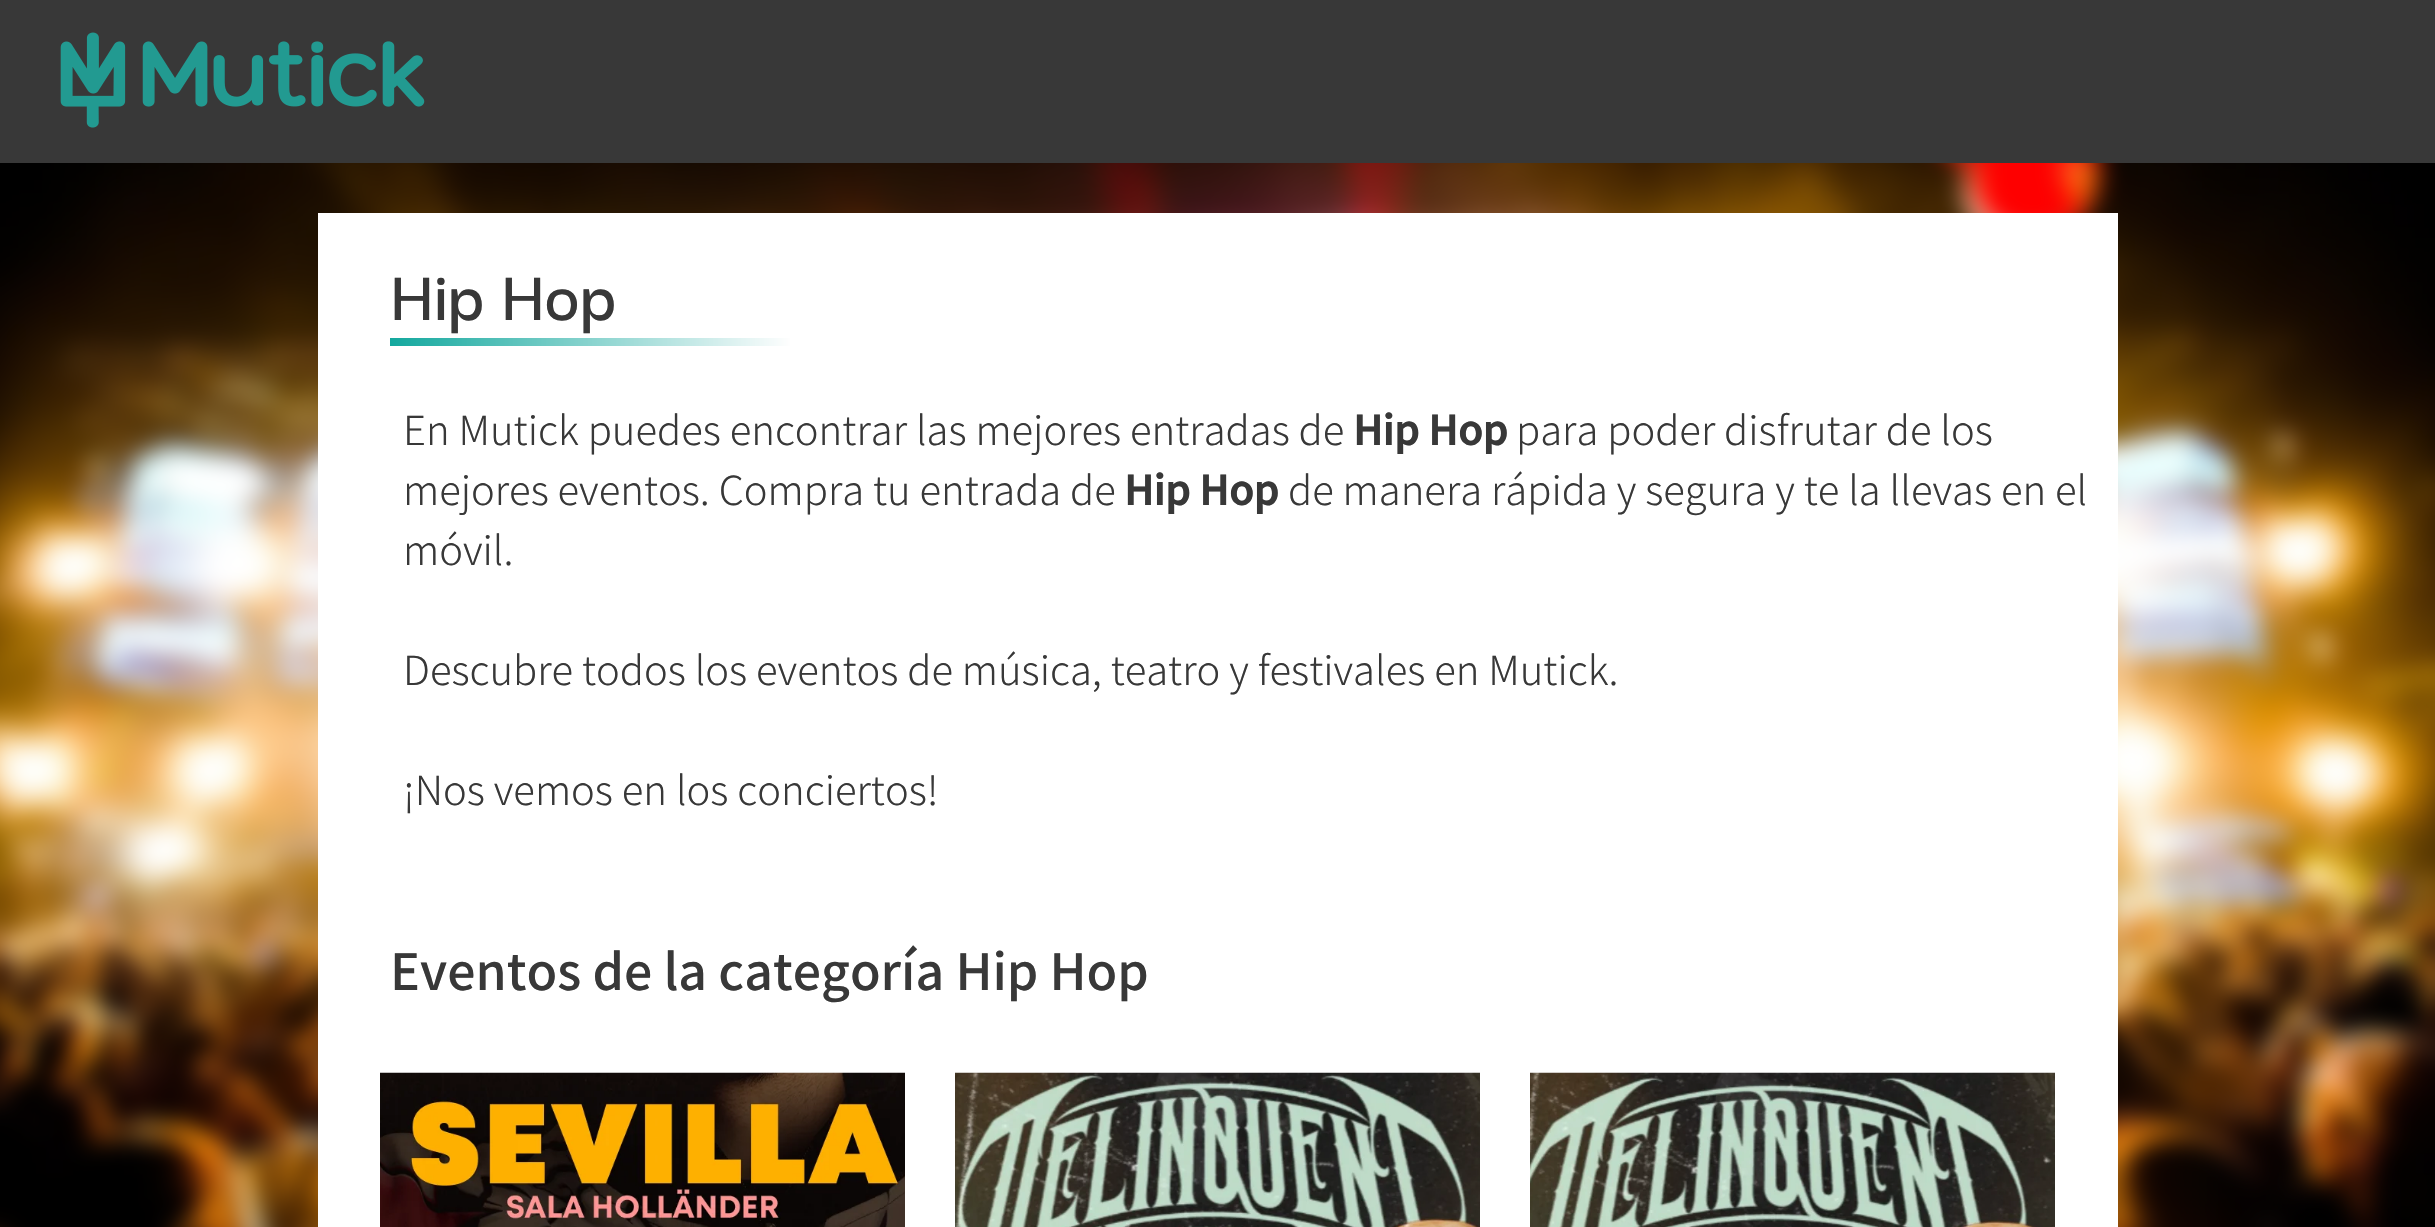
#include "include/core/SkBlurTypes.h"
#include "include/core/SkCanvas.h"
#include "include/core/SkData.h"
#include "include/core/SkFont.h"
#include "include/core/SkFontMgr.h"
#include "include/core/SkImage.h"
#include "include/core/SkMaskFilter.h"
#include "include/core/SkPaint.h"
#include "include/core/SkPathBuilder.h"
#include "include/core/SkTextBlob.h"
#include "include/effects/SkDashPathEffect.h"
#include "include/effects/SkGradientShader.h"
#include "include/utils/SkParsePath.h"

extern sk_sp<SkFontMgr> fontMgr;

static SkFont font(const char* family, int weight, float size, bool italic = false) {
    SkFontStyle style(weight, SkFontStyle::kNormal_Width,
        italic ? SkFontStyle::kItalic_Slant : SkFontStyle::kUpright_Slant);
    SkFont result(fontMgr->matchFamilyStyle(family, style), size);
    result.setSubpixel(true);
    return result;
}

static void drawLabel(SkCanvas* canvas, const char* s, float x, float y, const SkFont& font, SkColor color) {
    SkPaint ink(SkColor4f::FromColor(color));
    ink.setAntiAlias(true);
    canvas->drawString(s, x, y, font, ink);
}

static void fillRect(SkCanvas* canvas, float x, float y, float w, float h, SkColor color) {
    SkPaint ink(SkColor4f::FromColor(color));
    ink.setAntiAlias(true);
    canvas->drawRect(SkRect::MakeXYWH(x, y, w, h), ink);
}

static void drawPhoto(SkCanvas* canvas, const char* path, float x, float y, float w, float h) {
    auto image = SkImages::DeferredFromEncodedData(SkData::MakeFromFileName(path));
    canvas->drawImageRect(image, SkRect::MakeXYWH(x, y, w, h), SkSamplingOptions());
}

void draw(SkCanvas* canvas) {
    SkPaint paint;
    paint.setAntiAlias(true);
    canvas->clear(0xFFFFFFFF);
    fillRect(canvas, 0, 0, 2435, 163, 0xFF383838);
    drawPhoto(canvas, "assets/img1.png", 60, 32, 365, 96);
    drawPhoto(canvas, "assets/img2.png", 0, 163, 2435, 1064);
    fillRect(canvas, 318, 213, 1800, 1014, 0xFFFFFFFF);
    SkFont font1 = font("Darker Grotesque", 600, 75);
    drawLabel(canvas, "Hip Hop", 390, 320, font1, 0xFF383838);
    {
        const SkColor colors[] = {0xFF13A89E, 0xFFFEFEFE};
        const float stops[] = {0, 1};
        const SkPoint ends[] = {{390, 341}, {790, 341}};
        paint.setShader(SkGradientShader::MakeLinear(ends, colors, stops, 2, SkTileMode::kClamp));
        paint.setAlpha(255);
    }
    canvas->drawRect(SkRect::MakeXYWH(390, 338, 400, 8), paint);
    SkFont font2 = font("Noto Sans JP", 300, 40);
    drawLabel(canvas, "En Mutick puedes encontrar las mejores entradas de", 403, 445, font2, 0xFF383838);
    SkFont font3 = font("Noto Sans JP", 700, 40);
    drawLabel(canvas, "Hip Hop", 1353, 445, font3, 0xFF383838);
    drawLabel(canvas, "para poder disfrutar de los", 1516, 445, font2, 0xFF383838);
    drawLabel(canvas, "mejores eventos. Compra tu entrada de", 403, 505, font2, 0xFF383838);
    drawLabel(canvas, "Hip Hop", 1124, 505, font3, 0xFF383838);
    drawLabel(canvas, "de manera rápida y segura y te la llevas en el", 1288, 505, font2, 0xFF383838);
    drawLabel(canvas, "móvil.", 403, 565, font2, 0xFF383838);
    drawLabel(canvas, "Descubre todos los eventos de música, teatro y festivales en Mutick.", 403, 685, font2, 0xFF383838);
    drawLabel(canvas, "¡Nos vemos en los conciertos!", 403, 805, font2, 0xFF383838);
    SkFont font4 = font("Noto Sans JP", 500, 50);
    drawLabel(canvas, "Eventos de la categoría Hip Hop", 390, 990, font4, 0xFF383838);
    drawPhoto(canvas, "assets/img3.png", 380, 1072, 525, 155);
    drawPhoto(canvas, "assets/img4.png", 955, 1072, 525, 155);
    drawPhoto(canvas, "assets/img5.png", 1530, 1072, 525, 155);
}
